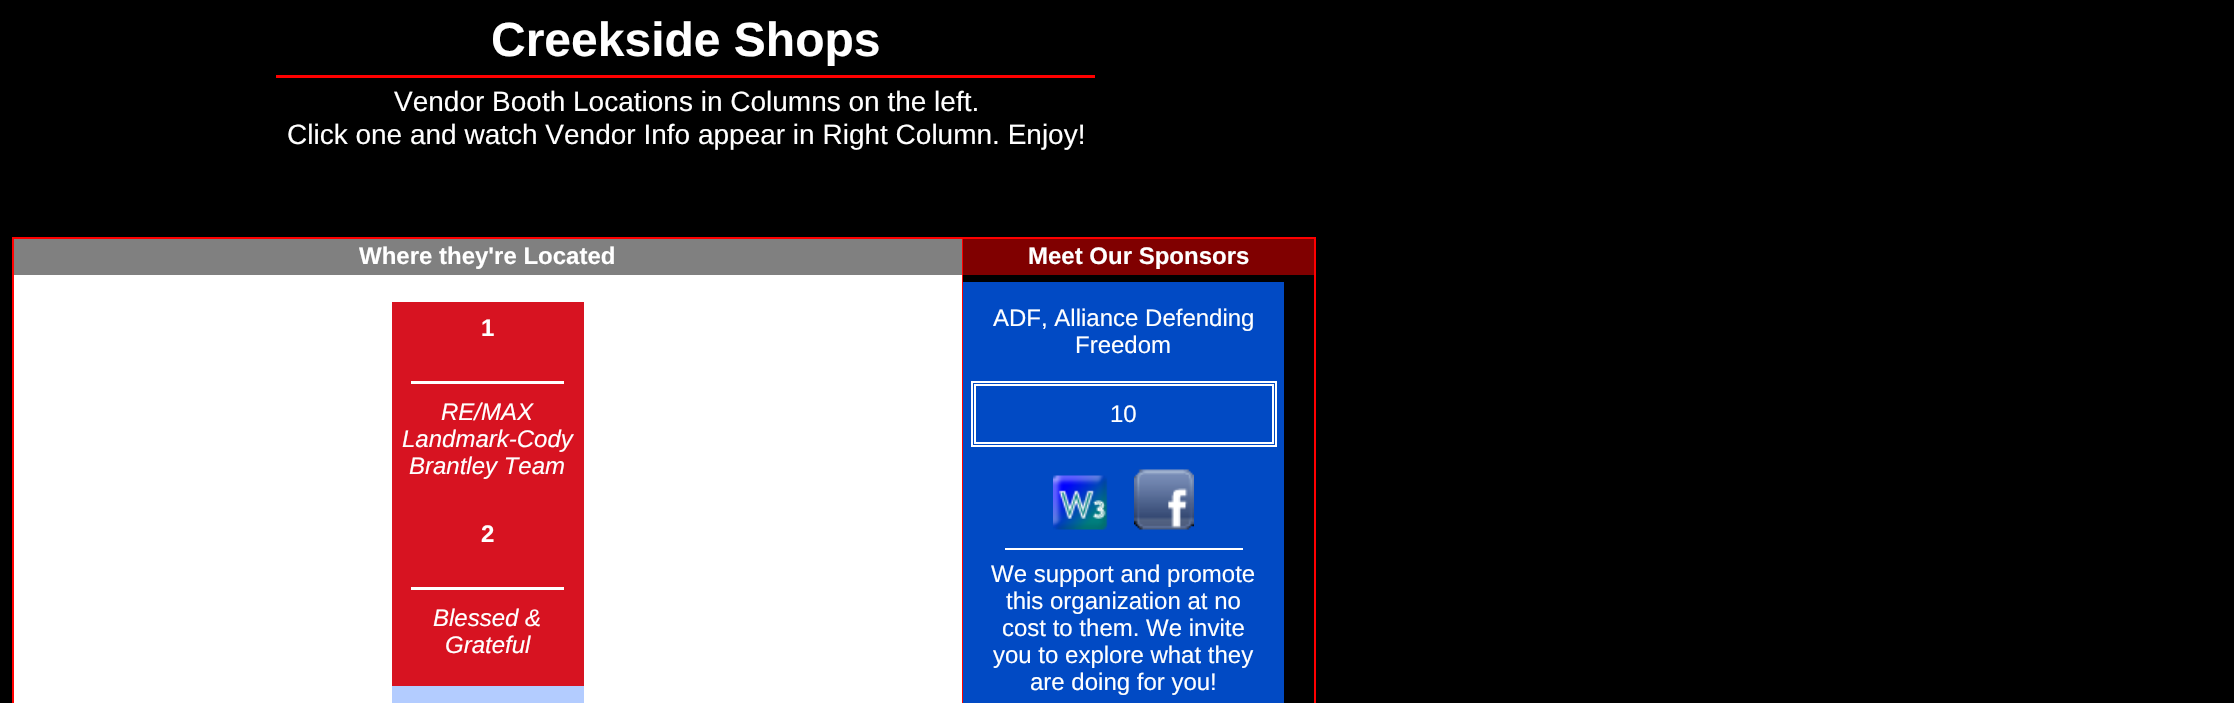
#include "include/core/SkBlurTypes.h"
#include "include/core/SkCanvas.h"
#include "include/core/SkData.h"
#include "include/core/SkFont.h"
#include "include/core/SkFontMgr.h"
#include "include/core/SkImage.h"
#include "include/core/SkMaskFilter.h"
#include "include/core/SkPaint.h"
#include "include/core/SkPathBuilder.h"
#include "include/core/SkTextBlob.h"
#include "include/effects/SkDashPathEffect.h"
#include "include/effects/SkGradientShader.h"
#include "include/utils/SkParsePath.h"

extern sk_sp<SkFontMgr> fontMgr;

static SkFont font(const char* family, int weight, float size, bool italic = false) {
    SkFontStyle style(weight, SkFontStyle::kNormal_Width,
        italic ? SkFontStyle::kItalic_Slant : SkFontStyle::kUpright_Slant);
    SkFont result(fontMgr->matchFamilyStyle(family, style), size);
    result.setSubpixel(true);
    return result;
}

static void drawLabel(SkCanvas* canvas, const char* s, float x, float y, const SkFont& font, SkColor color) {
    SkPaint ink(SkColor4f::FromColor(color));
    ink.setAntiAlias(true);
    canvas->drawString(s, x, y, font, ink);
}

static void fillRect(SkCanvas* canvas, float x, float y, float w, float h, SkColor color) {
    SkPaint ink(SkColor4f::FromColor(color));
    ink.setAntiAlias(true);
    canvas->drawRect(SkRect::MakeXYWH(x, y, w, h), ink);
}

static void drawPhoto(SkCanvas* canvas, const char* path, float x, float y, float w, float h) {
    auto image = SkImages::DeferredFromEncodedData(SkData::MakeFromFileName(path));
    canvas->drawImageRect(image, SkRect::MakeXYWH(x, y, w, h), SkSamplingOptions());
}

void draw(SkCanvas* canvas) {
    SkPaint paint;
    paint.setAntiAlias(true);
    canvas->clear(0xFF000000);
    SkFont font1 = font("Liberation Sans", 700, 48);
    drawLabel(canvas, "Creekside Shops", 491, 56, font1, 0xFFFFFFFF);
    fillRect(canvas, 276, 75, 819, 3, 0xFFFF0000);
    SkFont font2 = font("Liberation Sans", 400, 28);
    drawLabel(canvas, "Vendor Booth Locations in Columns on the left.", 394, 111, font2, 0xFFFFFFFF);
    drawLabel(canvas, "Click one and watch Vendor Info appear in Right Column. Enjoy!", 287, 144, font2, 0xFFFFFFFF);
    fillRect(canvas, 962, 237, 354, 2, 0xFFFF0000);
    paint.setStroke(true);
    paint.setStrokeWidth(2);
    paint.setColor(0xFFFF0000);
    canvas->drawRect(SkRect::MakeXYWH(13, 238, 949, 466), paint);
    fillRect(canvas, 14, 239, 948, 36, 0xFF808080);
    SkFont font3 = font("Liberation Sans", 700, 24);
    drawLabel(canvas, "Where they're Located", 359, 264, font3, 0xFFFFFFFF);
    fillRect(canvas, 14, 275, 948, 428, 0xFFFFFFFF);
    fillRect(canvas, 392, 302, 192, 384, 0xFFD71321);
    drawLabel(canvas, "1", 481, 336, font3, 0xFFFFFFFF);
    fillRect(canvas, 411, 381, 153, 3, 0xFFFFFFFF);
    SkFont font4 = font("Liberation Sans", 400, 24, true);
    drawLabel(canvas, "RE/MAX", 441, 420, font4, 0xFFFFFFFF);
    drawLabel(canvas, "Landmark-Cody", 402, 447, font4, 0xFFFFFFFF);
    drawLabel(canvas, "Brantley Team", 409, 474, font4, 0xFFFFFFFF);
    drawLabel(canvas, "2", 481, 542, font3, 0xFFFFFFFF);
    fillRect(canvas, 411, 587, 153, 3, 0xFFFFFFFF);
    drawLabel(canvas, "Blessed &", 433, 626, font4, 0xFFFFFFFF);
    drawLabel(canvas, "Grateful", 445, 653, font4, 0xFFFFFFFF);
    fillRect(canvas, 392, 686, 192, 17, 0xFFB3CCFF);
    fillRect(canvas, 1314, 237, 2, 466, 0xFFFF0000);
    fillRect(canvas, 963, 239, 351, 36, 0xFF800000);
    drawLabel(canvas, "Meet Our Sponsors", 1028, 264, font3, 0xFFFFFFFF);
    fillRect(canvas, 963, 282, 321, 421, 0xFF014AC4);
    SkFont font5 = font("Liberation Sans", 400, 24);
    drawLabel(canvas, "ADF, Alliance Defending", 993, 326, font5, 0xFFFFFFFF);
    drawLabel(canvas, "Freedom", 1075, 353, font5, 0xFFFFFFFF);
    paint.setColor(0xFFFFFFFF);
    canvas->drawRect(SkRect::MakeXYWH(972, 382, 304, 64), paint);
    canvas->drawRect(SkRect::MakeXYWH(975, 385, 298, 58), paint);
    drawLabel(canvas, "10", 1110, 422, font5, 0xFFFFFFFF);
    drawPhoto(canvas, "assets/img1.png", 1053, 475, 55, 55);
    drawPhoto(canvas, "assets/img2.png", 1134, 469, 60, 61);
    fillRect(canvas, 1005, 548, 238, 2, 0xFFFFFFFF);
    drawLabel(canvas, "We support and promote", 991, 582, font5, 0xFFFFFFFF);
    drawLabel(canvas, "this organization at no", 1006, 609, font5, 0xFFFFFFFF);
    drawLabel(canvas, "cost to them. We invite", 1002, 636, font5, 0xFFFFFFFF);
    drawLabel(canvas, "you to explore what they", 993, 663, font5, 0xFFFFFFFF);
    drawLabel(canvas, "are doing for you!", 1030, 690, font5, 0xFFFFFFFF);
}
